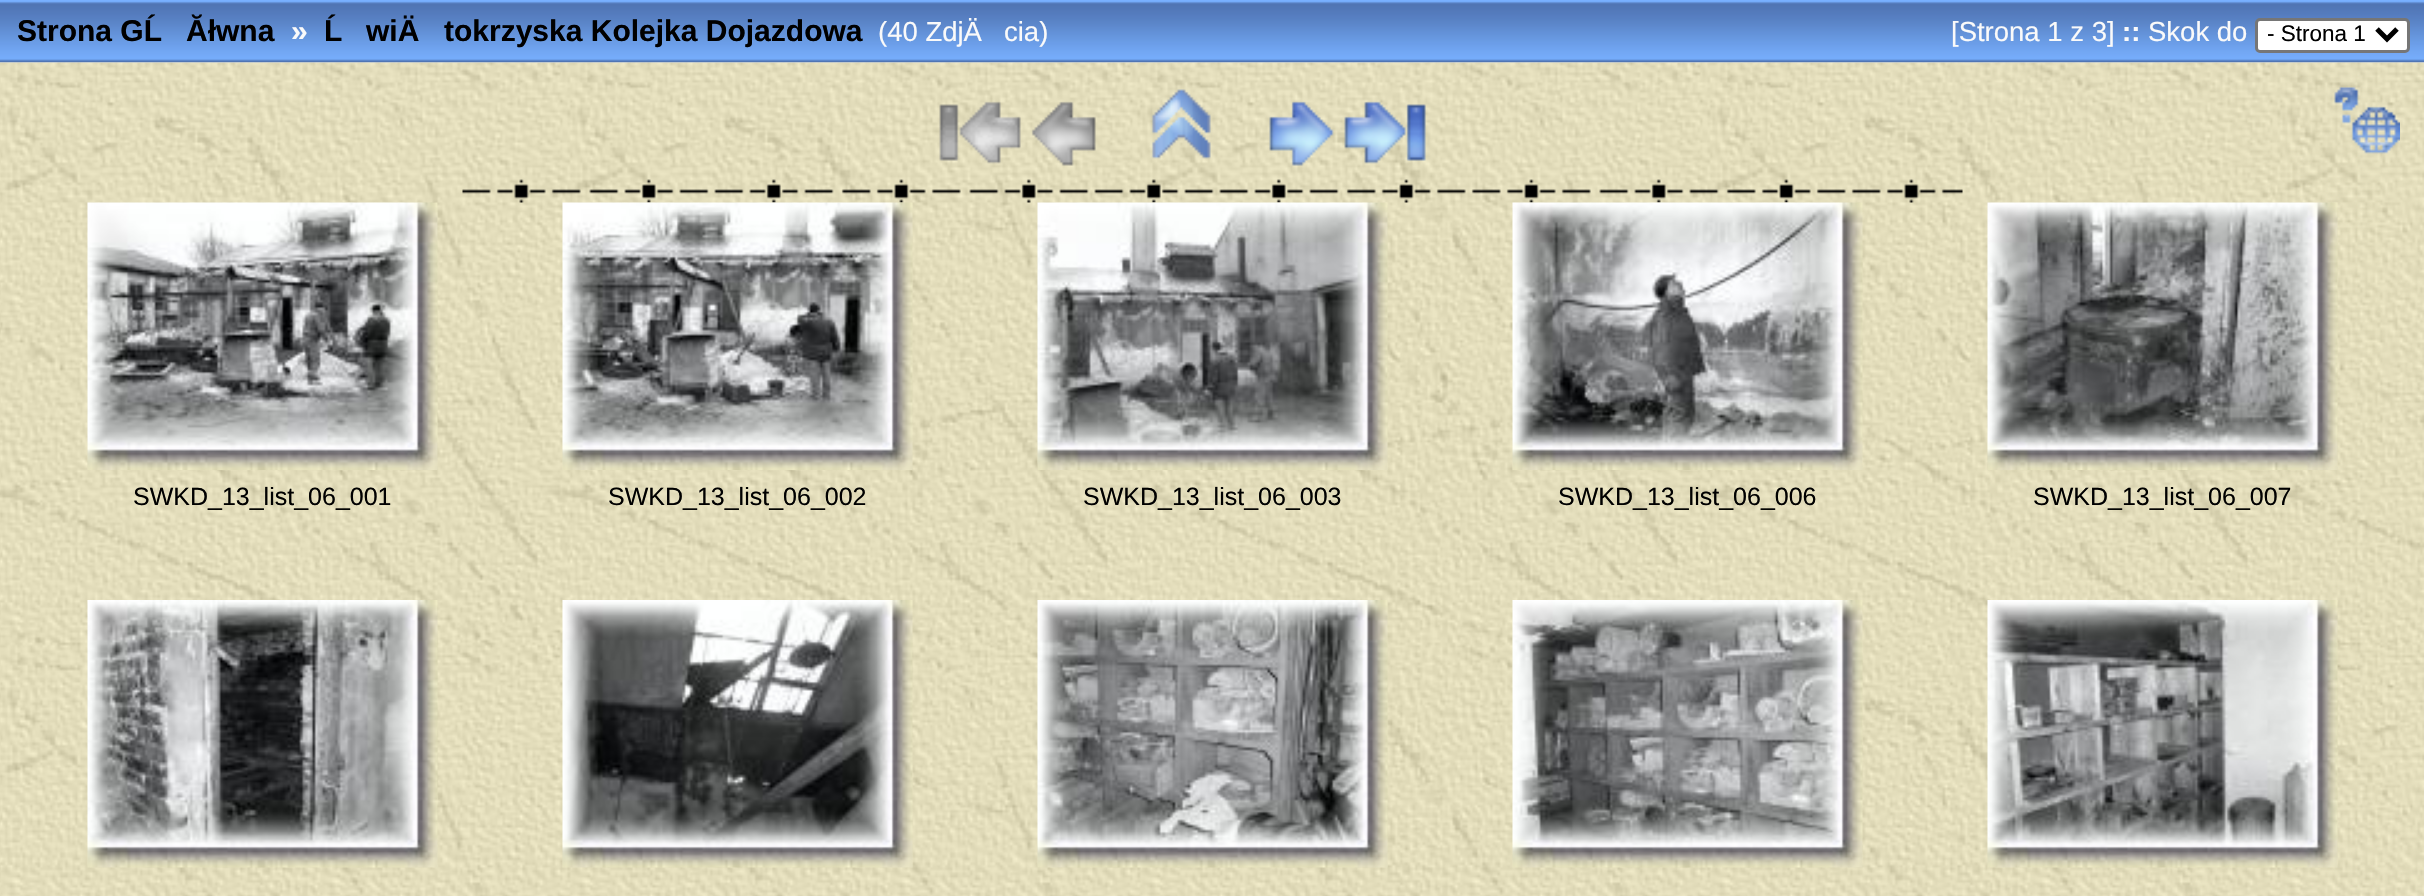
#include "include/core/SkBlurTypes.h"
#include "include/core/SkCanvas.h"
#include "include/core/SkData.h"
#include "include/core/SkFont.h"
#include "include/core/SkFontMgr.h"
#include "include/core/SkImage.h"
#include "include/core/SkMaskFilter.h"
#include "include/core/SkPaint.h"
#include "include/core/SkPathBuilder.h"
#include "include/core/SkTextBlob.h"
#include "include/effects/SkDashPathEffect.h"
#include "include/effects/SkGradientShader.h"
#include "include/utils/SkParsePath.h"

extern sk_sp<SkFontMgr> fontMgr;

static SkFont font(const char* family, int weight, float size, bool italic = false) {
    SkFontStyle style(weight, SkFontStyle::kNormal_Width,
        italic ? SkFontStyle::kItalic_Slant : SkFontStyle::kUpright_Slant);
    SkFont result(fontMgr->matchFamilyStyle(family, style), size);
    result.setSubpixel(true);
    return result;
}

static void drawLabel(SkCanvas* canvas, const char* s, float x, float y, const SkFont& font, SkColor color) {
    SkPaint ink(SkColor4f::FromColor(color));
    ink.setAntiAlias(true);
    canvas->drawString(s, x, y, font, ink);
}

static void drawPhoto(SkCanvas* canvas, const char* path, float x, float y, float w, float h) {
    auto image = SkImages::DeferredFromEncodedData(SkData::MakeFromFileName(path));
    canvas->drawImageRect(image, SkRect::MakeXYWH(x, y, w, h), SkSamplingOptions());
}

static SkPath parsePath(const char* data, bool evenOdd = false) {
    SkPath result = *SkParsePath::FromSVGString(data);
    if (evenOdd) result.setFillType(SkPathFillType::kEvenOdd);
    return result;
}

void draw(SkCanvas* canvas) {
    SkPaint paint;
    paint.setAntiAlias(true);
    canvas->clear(0xFFFFFFFF);
    drawPhoto(canvas, "assets/img1.png", 0, 0, 2424, 63);
    SkFont font1 = font("Liberation Sans", 700, 30);
    drawLabel(canvas, "Strona GĹ", 17, 41, font1, 0xFF000000);
    drawLabel(canvas, "Ăłwna", 186, 41, font1, 0xFF000000);
    drawLabel(canvas, "»", 291, 41, font1, 0xFFFAFAFA);
    drawLabel(canvas, "Ĺ", 324, 41, font1, 0xFF000000);
    drawLabel(canvas, "wiÄ", 366, 41, font1, 0xFF000000);
    drawLabel(canvas, "tokrzyska Kolejka Dojazdowa", 444, 41, font1, 0xFF000000);
    SkFont font2 = font("Liberation Sans", 400, 27.5f);
    drawLabel(canvas, "(40 ZdjÄ", 878, 41, font2, 0xFFFAFAFA);
    drawLabel(canvas, "cia)", 1004, 41, font2, 0xFFFAFAFA);
    drawLabel(canvas, "[Strona 1 z 3]", 1951, 41, font2, 0xFFFAFAFA);
    SkFont font3 = font("Liberation Sans", 700, 27.5f);
    drawLabel(canvas, "::", 2122, 41, font3, 0xFFFAFAFA);
    drawLabel(canvas, "Skok do", 2148, 41, font2, 0xFFFAFAFA);
    paint.setColor(0xFFFFFFFF);
    canvas->drawRoundRect(SkRect::MakeXYWH(2256.5f, 19.5f, 152, 32), 3.5f, 3.5f, paint);
    paint.setStroke(true);
    paint.setStrokeWidth(3);
    paint.setColor(0xFF767676);
    canvas->drawRoundRect(SkRect::MakeXYWH(2256.5f, 19.5f, 152, 32), 3.5f, 3.5f, paint);
    paint.setStrokeWidth(5);
    paint.setColor(0xFF000000);
    canvas->drawPath(parsePath("M2377 29L2387 39L2397 29"), paint);
    SkFont font4 = font("Liberation Sans", 400, 22.5f);
    drawLabel(canvas, "- Strona 1", 2267, 41, font4, 0xFF000000);
    drawPhoto(canvas, "assets/img2.png", 0, 62, 2424, 834);
    drawPhoto(canvas, "assets/img3.png", 939, 101, 82, 63);
    drawPhoto(canvas, "assets/img4.png", 1031, 101, 65, 65);
    drawPhoto(canvas, "assets/img5.png", 1151, 89, 60, 70);
    drawPhoto(canvas, "assets/img6.png", 1269, 101, 65, 65);
    drawPhoto(canvas, "assets/img7.png", 1344, 101, 82, 63);
    drawPhoto(canvas, "assets/img8.png", 2334, 87, 66, 67);
    drawPhoto(canvas, "assets/img9.png", 462, 179, 1501, 24);
    drawPhoto(canvas, "assets/img10.png", 87, 202, 351, 268);
    drawPhoto(canvas, "assets/img11.png", 562, 202, 351, 268);
    drawPhoto(canvas, "assets/img12.png", 1037, 202, 351, 268);
    drawPhoto(canvas, "assets/img13.png", 1512, 202, 351, 268);
    drawPhoto(canvas, "assets/img14.png", 1987, 202, 351, 268);
    SkFont font5 = font("Liberation Sans", 400, 25);
    drawLabel(canvas, "SWKD_13_list_06_001", 133, 505, font5, 0xFF000000);
    drawLabel(canvas, "SWKD_13_list_06_002", 608, 505, font5, 0xFF000000);
    drawLabel(canvas, "SWKD_13_list_06_003", 1083, 505, font5, 0xFF000000);
    drawLabel(canvas, "SWKD_13_list_06_006", 1558, 505, font5, 0xFF000000);
    drawLabel(canvas, "SWKD_13_list_06_007", 2033, 505, font5, 0xFF000000);
    drawPhoto(canvas, "assets/img15.png", 87, 600, 351, 268);
    drawPhoto(canvas, "assets/img16.png", 562, 600, 351, 268);
    drawPhoto(canvas, "assets/img17.png", 1037, 600, 351, 268);
    drawPhoto(canvas, "assets/img18.png", 1512, 600, 351, 268);
    drawPhoto(canvas, "assets/img19.png", 1987, 600, 351, 268);
}
